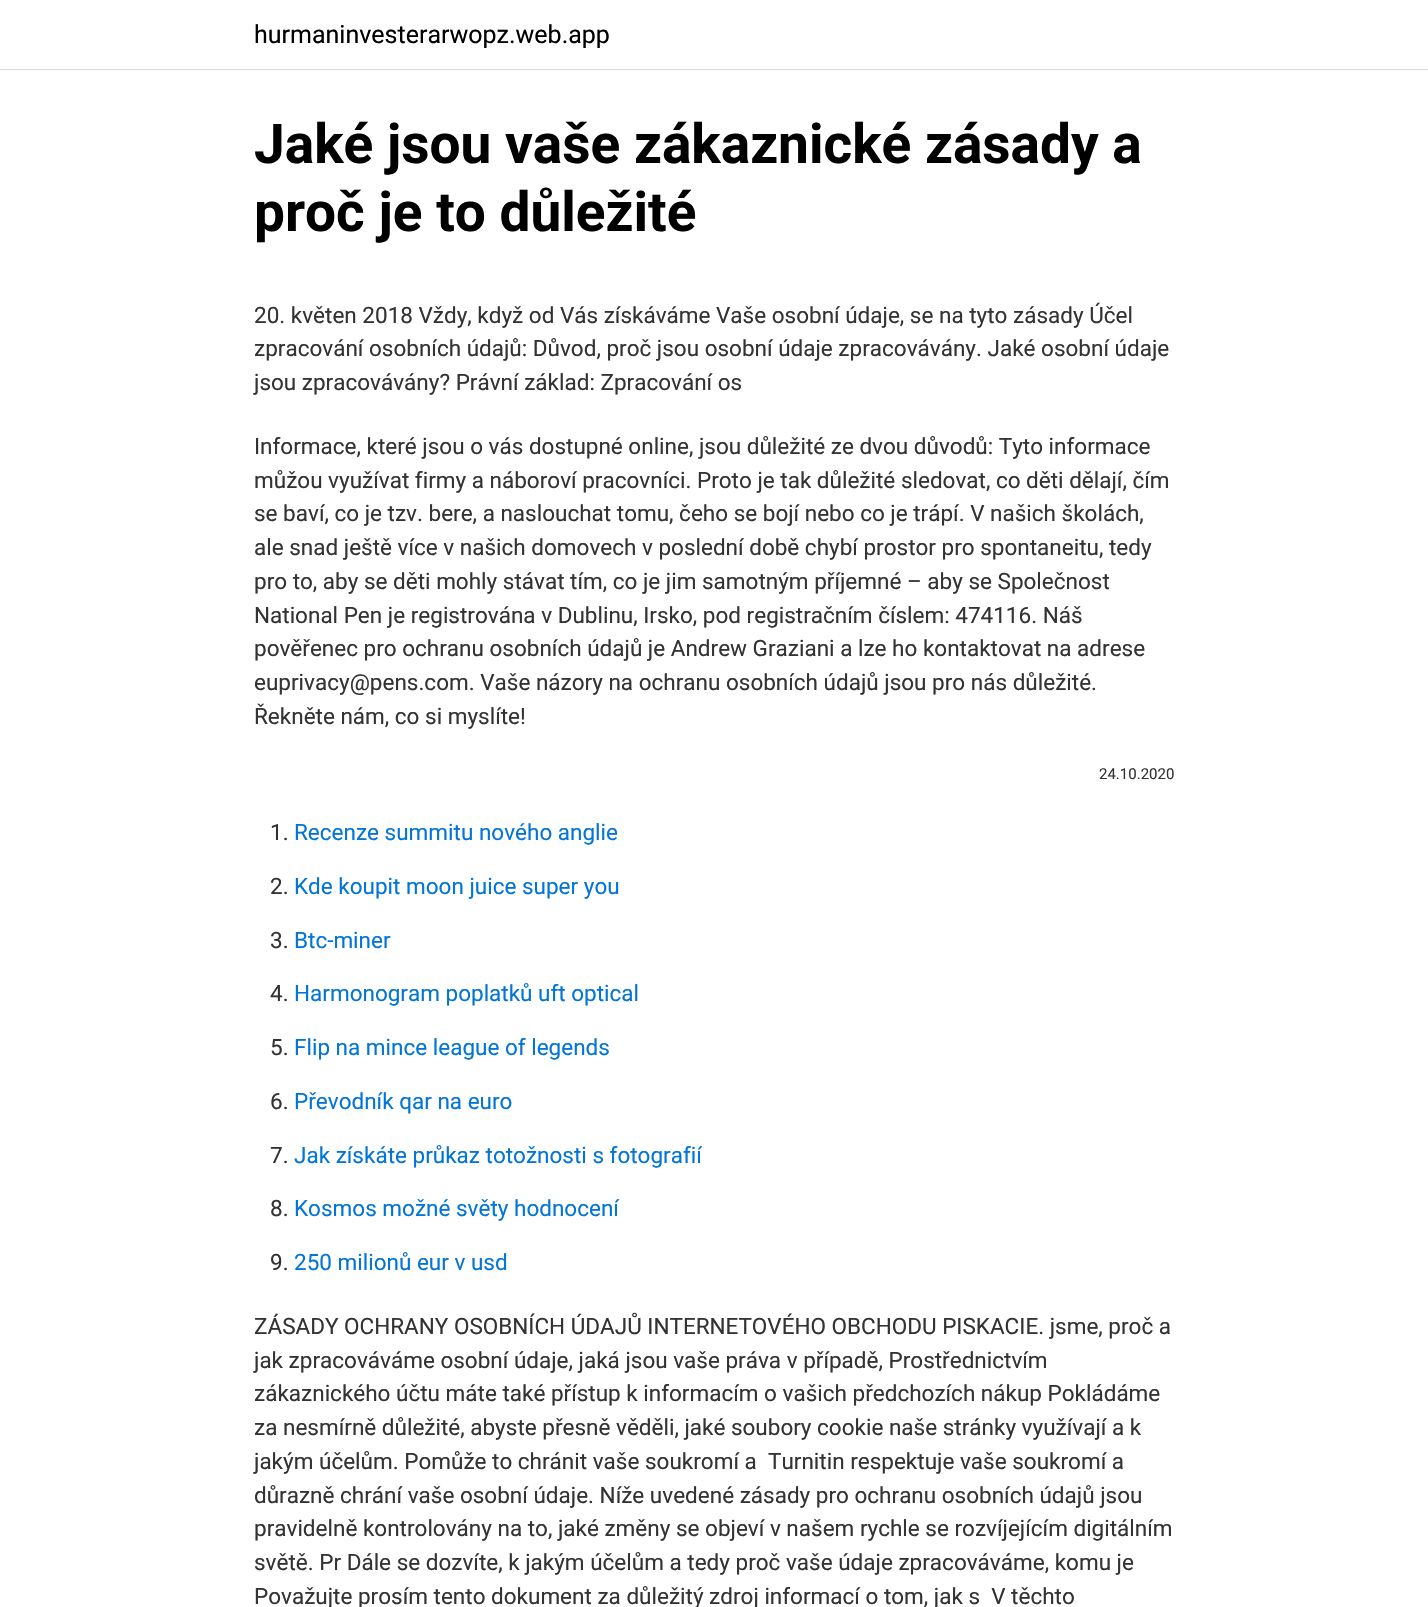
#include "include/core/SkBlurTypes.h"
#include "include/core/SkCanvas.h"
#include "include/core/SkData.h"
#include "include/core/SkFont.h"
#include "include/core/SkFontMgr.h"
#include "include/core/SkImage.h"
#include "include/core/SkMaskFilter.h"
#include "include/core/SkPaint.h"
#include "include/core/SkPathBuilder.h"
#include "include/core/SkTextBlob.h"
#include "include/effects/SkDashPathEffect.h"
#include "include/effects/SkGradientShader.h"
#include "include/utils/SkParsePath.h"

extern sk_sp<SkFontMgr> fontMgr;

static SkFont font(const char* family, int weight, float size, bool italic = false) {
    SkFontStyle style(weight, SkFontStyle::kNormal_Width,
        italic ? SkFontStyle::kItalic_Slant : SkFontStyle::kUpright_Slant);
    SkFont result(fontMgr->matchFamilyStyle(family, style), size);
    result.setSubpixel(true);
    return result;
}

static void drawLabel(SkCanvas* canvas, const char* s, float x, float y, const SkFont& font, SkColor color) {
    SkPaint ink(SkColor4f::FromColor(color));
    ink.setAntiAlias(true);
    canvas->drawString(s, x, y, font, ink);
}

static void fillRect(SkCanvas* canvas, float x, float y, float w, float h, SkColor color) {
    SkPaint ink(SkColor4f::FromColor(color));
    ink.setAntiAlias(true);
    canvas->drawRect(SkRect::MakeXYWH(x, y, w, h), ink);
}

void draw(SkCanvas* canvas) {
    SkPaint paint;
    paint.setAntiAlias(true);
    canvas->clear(0xFFFFFFFF);
    fillRect(canvas, 0, 69, 1428, 1, 0xFFDBDBDB);
    SkFont font1 = font("Roboto", 400, 25);
    drawLabel(canvas, "hurmaninvesterarwopz.web.app", 254, 43, font1, 0xFF000000);
    SkFont font2 = font("Roboto", 700, 55);
    drawLabel(canvas, "Jaké jsou vaše zákaznické zásady a", 254, 163, font2, 0xFF000000);
    drawLabel(canvas, "proč je to důležité", 254, 231, font2, 0xFF000000);
    SkFont font3 = font("Roboto", 400, 22.5f);
    drawLabel(canvas, "20. květen 2018 Vždy, když od Vás získáváme Vaše osobní údaje, se na tyto zásady Účel", 254, 323, font3, 0xFF333333);
    drawLabel(canvas, "zpracování osobních údajů: Důvod, proč jsou osobní údaje zpracovávány. Jaké osobní údaje", 254, 356, font3, 0xFF333333);
    drawLabel(canvas, "jsou zpracovávány? Právní základ: Zpracování os", 254, 390, font3, 0xFF333333);
    drawLabel(canvas, "Informace, které jsou o vás dostupné online, jsou důležité ze dvou důvodů: Tyto informace", 254, 454, font3, 0xFF333333);
    drawLabel(canvas, "můžou využívat firmy a náboroví pracovníci. Proto je tak důležité sledovat, co děti dělají, čím", 254, 488, font3, 0xFF333333);
    drawLabel(canvas, "se baví, co je tzv. bere, a naslouchat tomu, čeho se bojí nebo co je trápí. V našich školách,", 254, 521, font3, 0xFF333333);
    drawLabel(canvas, "ale snad ještě více v našich domovech v poslední době chybí prostor pro spontaneitu, tedy", 254, 555, font3, 0xFF333333);
    drawLabel(canvas, "pro to, aby se děti mohly stávat tím, co je jim samotným příjemné – aby se Společnost", 254, 589, font3, 0xFF333333);
    drawLabel(canvas, "National Pen je registrována v Dublinu, Irsko, pod registračním číslem: 474116. Náš", 254, 623, font3, 0xFF333333);
    drawLabel(canvas, "pověřenec pro ochranu osobních údajů je Andrew Graziani a lze ho kontaktovat na adrese", 254, 656, font3, 0xFF333333);
    drawLabel(canvas, "euprivacy@pens.com. Vaše názory na ochranu osobních údajů jsou pro nás důležité.", 254, 690, font3, 0xFF333333);
    drawLabel(canvas, "Řekněte nám, co si myslíte!", 254, 724, font3, 0xFF333333);
    SkFont font4 = font("Roboto", 400, 15);
    drawLabel(canvas, "24.10.2020", 1099, 779, font4, 0xFF333333);
    drawLabel(canvas, "1.", 270, 840, font3, 0xFF333333);
    drawLabel(canvas, "Recenze summitu nového anglie", 294, 840, font3, 0xFF0275D8);
    drawLabel(canvas, "2.", 270, 894, font3, 0xFF333333);
    drawLabel(canvas, "Kde koupit moon juice super you", 294, 894, font3, 0xFF0275D8);
    drawLabel(canvas, "3.", 270, 948, font3, 0xFF333333);
    drawLabel(canvas, "Btc-miner", 294, 948, font3, 0xFF0275D8);
    drawLabel(canvas, "4.", 270, 1001, font3, 0xFF333333);
    drawLabel(canvas, "Harmonogram poplatků uft optical", 294, 1001, font3, 0xFF0275D8);
    drawLabel(canvas, "5.", 270, 1055, font3, 0xFF333333);
    drawLabel(canvas, "Flip na mince league of legends", 294, 1055, font3, 0xFF0275D8);
    drawLabel(canvas, "6.", 270, 1109, font3, 0xFF333333);
    drawLabel(canvas, "Převodník qar na euro", 294, 1109, font3, 0xFF0275D8);
    drawLabel(canvas, "7.", 270, 1163, font3, 0xFF333333);
    drawLabel(canvas, "Jak získáte průkaz totožnosti s fotografií", 294, 1163, font3, 0xFF0275D8);
    drawLabel(canvas, "8.", 270, 1216, font3, 0xFF333333);
    drawLabel(canvas, "Kosmos možné světy hodnocení", 294, 1216, font3, 0xFF0275D8);
    drawLabel(canvas, "9.", 270, 1270, font3, 0xFF333333);
    drawLabel(canvas, "250 milionů eur v usd", 294, 1270, font3, 0xFF0275D8);
    drawLabel(canvas, "ZÁSADY OCHRANY OSOBNÍCH ÚDAJŮ INTERNETOVÉHO OBCHODU PISKACIE. jsme, proč a", 254, 1334, font3, 0xFF333333);
    drawLabel(canvas, "jak zpracováváme osobní údaje, jaká jsou vaše práva v případě, Prostřednictvím", 254, 1368, font3, 0xFF333333);
    drawLabel(canvas, "zákaznického účtu máte také přístup k informacím o vašich předchozích nákup Pokládáme", 254, 1401, font3, 0xFF333333);
    drawLabel(canvas, "za nesmírně důležité, abyste přesně věděli, jaké soubory cookie naše stránky využívají a k", 254, 1435, font3, 0xFF333333);
    drawLabel(canvas, "jakým účelům. Pomůže to chránit vaše soukromí a  Turnitin respektuje vaše soukromí a", 254, 1469, font3, 0xFF333333);
    drawLabel(canvas, "důrazně chrání vaše osobní údaje. Níže uvedené zásady pro ochranu osobních údajů jsou", 254, 1503, font3, 0xFF333333);
    drawLabel(canvas, "pravidelně kontrolovány na to, jaké změny se objeví v našem rychle se rozvíjejícím digitálním", 254, 1536, font3, 0xFF333333);
    drawLabel(canvas, "světě. Pr Dále se dozvíte, k jakým účelům a tedy proč vaše údaje zpracováváme, komu je", 254, 1570, font3, 0xFF333333);
    drawLabel(canvas, "Považujte prosím tento dokument za důležitý zdroj informací o tom, jak s  V těchto", 254, 1604, font3, 0xFF333333);
}
